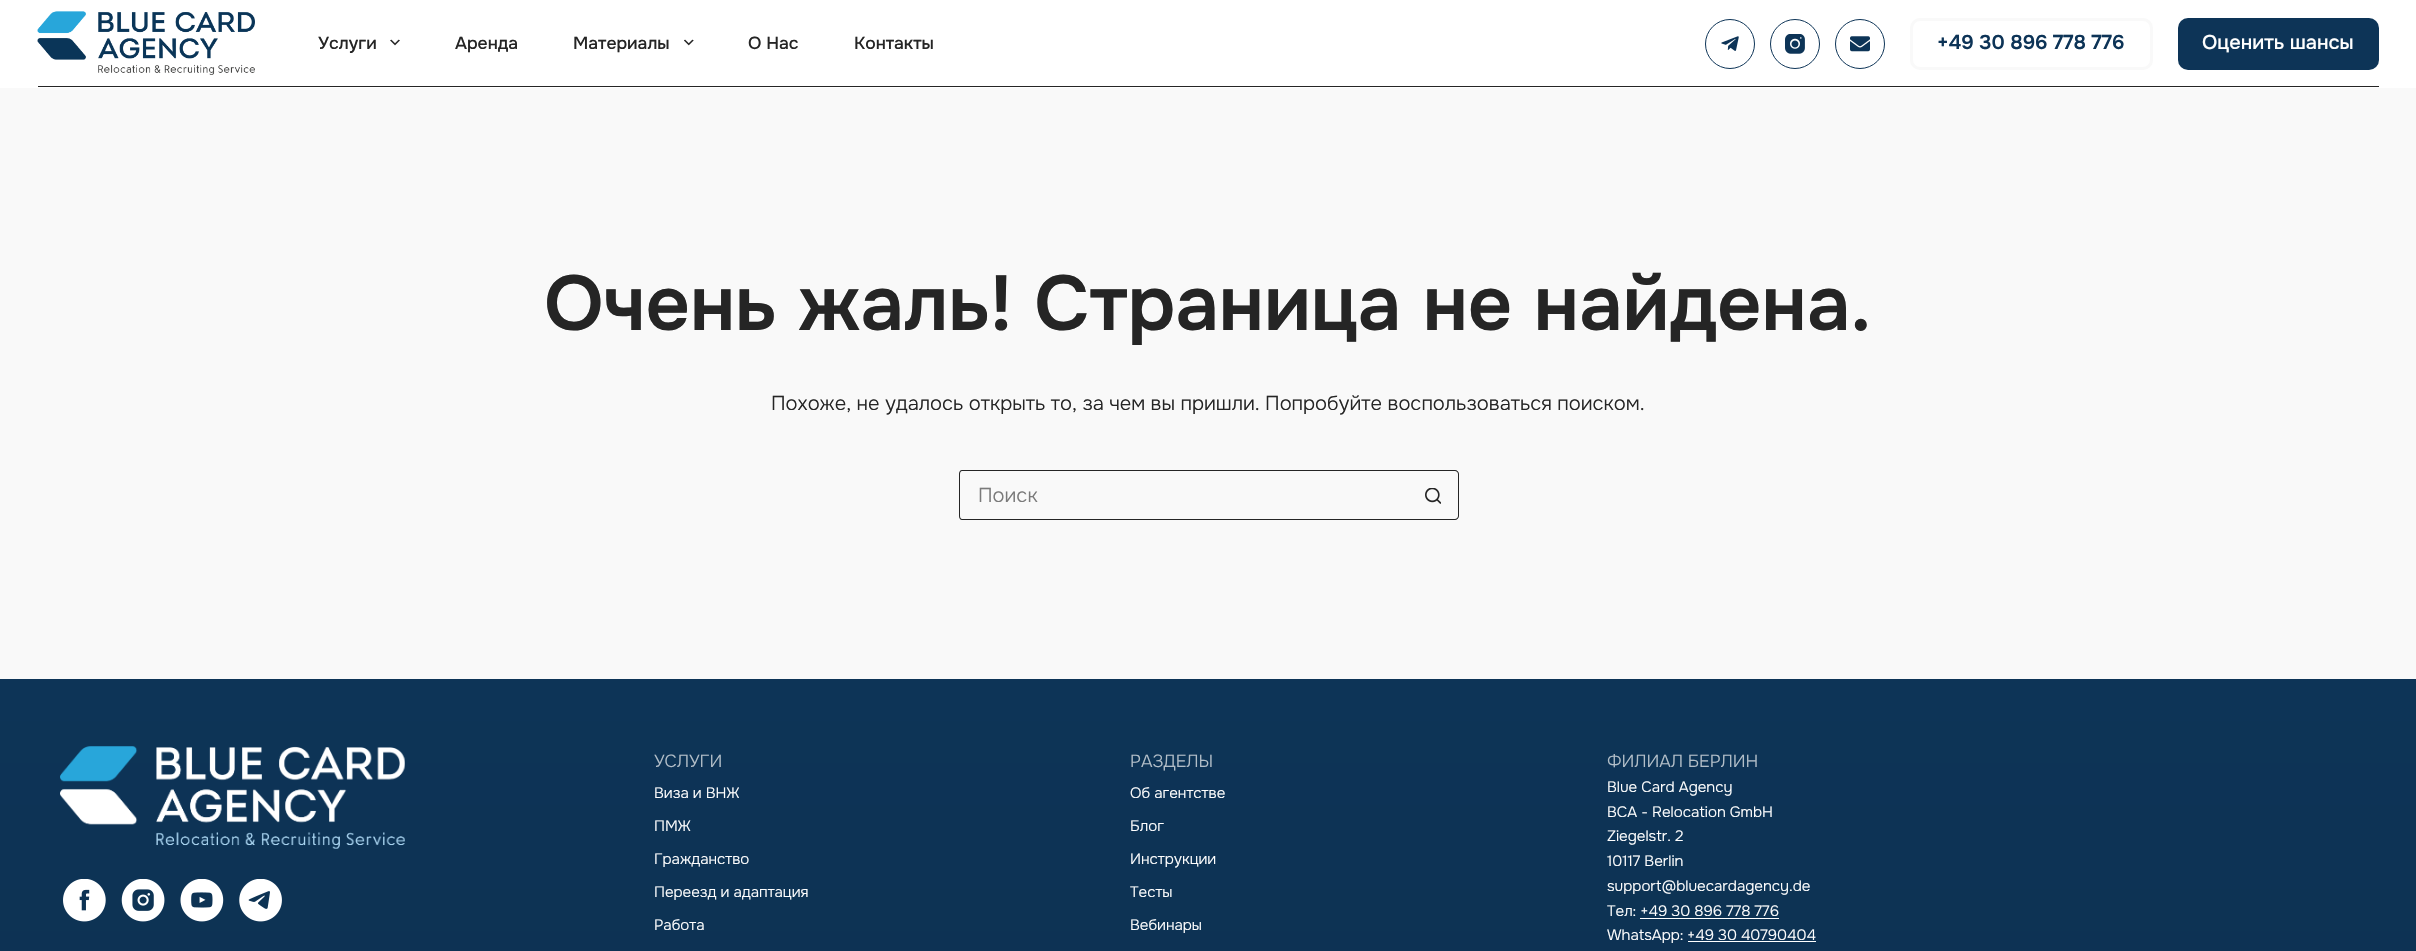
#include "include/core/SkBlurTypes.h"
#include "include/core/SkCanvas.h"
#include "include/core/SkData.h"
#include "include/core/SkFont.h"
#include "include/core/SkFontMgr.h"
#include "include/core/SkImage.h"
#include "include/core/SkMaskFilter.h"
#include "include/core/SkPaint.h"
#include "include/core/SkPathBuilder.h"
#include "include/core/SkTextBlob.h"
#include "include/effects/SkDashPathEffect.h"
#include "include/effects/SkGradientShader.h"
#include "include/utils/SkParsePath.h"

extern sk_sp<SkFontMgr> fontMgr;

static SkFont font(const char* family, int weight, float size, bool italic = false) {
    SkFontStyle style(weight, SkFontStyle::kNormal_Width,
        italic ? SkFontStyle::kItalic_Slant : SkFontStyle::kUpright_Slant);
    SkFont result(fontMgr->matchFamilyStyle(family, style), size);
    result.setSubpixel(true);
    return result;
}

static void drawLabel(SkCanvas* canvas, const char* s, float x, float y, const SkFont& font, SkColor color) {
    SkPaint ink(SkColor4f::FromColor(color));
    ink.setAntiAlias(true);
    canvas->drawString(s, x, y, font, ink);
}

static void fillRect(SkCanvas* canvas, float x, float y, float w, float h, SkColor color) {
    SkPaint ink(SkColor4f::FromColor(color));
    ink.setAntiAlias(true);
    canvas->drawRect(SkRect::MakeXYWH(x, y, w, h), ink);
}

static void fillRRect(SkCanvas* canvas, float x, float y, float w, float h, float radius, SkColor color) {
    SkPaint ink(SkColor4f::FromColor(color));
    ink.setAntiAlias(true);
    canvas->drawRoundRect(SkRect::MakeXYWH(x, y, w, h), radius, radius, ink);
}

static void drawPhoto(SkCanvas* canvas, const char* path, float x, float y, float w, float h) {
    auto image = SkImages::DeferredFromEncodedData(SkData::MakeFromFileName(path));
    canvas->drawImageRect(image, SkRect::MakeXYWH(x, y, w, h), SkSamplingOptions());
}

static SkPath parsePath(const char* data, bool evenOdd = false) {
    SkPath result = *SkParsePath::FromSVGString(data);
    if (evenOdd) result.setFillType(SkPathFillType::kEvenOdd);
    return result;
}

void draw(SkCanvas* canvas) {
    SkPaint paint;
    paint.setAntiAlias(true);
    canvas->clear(0xFFF9F9F9);
    fillRect(canvas, 0, 0, 2416, 88, 0xFFFFFFFF);
    fillRect(canvas, 38, 86, 2341, 1, 0xFF252525);
    drawPhoto(canvas, "assets/img1.png", 37, 11, 218, 64);
    SkFont font1 = font("Onest", 500, 17.5f);
    drawLabel(canvas, "Услуги", 318, 49, font1, 0xFF252525);
    drawPhoto(canvas, "assets/img2.png", 390, 39, 10, 7);
    drawLabel(canvas, "Аренда", 455, 49, font1, 0xFF252525);
    drawLabel(canvas, "Материалы", 573, 49, font1, 0xFF252525);
    drawPhoto(canvas, "assets/img3.png", 684, 39, 10, 7);
    drawLabel(canvas, "О Нас", 748, 49, font1, 0xFF252525);
    drawLabel(canvas, "Контакты", 854, 49, font1, 0xFF252525);
    paint.setStroke(true);
    paint.setStrokeWidth(1);
    paint.setColor(0xFF0D3457);
    canvas->drawCircle(1730, 44, 24.5f, paint);
    drawPhoto(canvas, "assets/img4.png", 1721, 36, 18, 15);
    canvas->drawCircle(1795, 44, 24.5f, paint);
    drawPhoto(canvas, "assets/img5.png", 1785, 34, 20, 20);
    canvas->drawCircle(1860, 44, 24.5f, paint);
    drawPhoto(canvas, "assets/img6.png", 1850, 36, 20, 16);
    paint.setStrokeWidth(3);
    paint.setColor(0xFFF9F9F9);
    canvas->drawRoundRect(SkRect::MakeXYWH(1911.5f, 19.5f, 240, 49), 8.5f, 8.5f, paint);
    SkFont font2 = font("Onest", 600, 20);
    drawLabel(canvas, "+49 30 896 778 776", 1937, 49, font2, 0xFF0D3457);
    fillRRect(canvas, 2178, 18, 201, 52, 10, 0xFF0D3457);
    SkFont font3 = font("Onest", 500, 20);
    drawLabel(canvas, "Оценить шансы", 2202, 49, font3, 0xFFFFFFFF);
    SkFont font4 = font("Onest", 600, 77.5f);
    drawLabel(canvas, "Очень жаль! Страница не найдена.", 544, 330, font4, 0xFF252525);
    SkFont font5 = font("Onest", 300, 20);
    drawLabel(canvas, "Похоже, не удалось открыть то, за чем вы пришли. Попробуйте воспользоваться поиском.", 771, 410, font5, 0xFF252525);
    paint.setStroke(false);
    paint.setColor(0xFF252525);
    canvas->drawPath(parsePath("M962 470H1409V520H962C960 520 959 518 959 516V474C959 472 960 470 962 470ZM962 471H1409V519H962C961 519 960 518 960 516V474C960 472 961 471 962 471Z", true), paint);
    drawLabel(canvas, "Поиск", 978, 502, font5, 0xFF7A7A7A);
    canvas->drawPath(parsePath("M1409 470H1455C1457 470 1459 472 1459 474V516C1459 518 1457 520 1455 520H1409ZM1409 471H1455C1456 471 1458 472 1458 474V516C1458 518 1456 519 1455 519H1409Z", true), paint);
    drawPhoto(canvas, "assets/img7.png", 1425, 488, 16, 16);
    {
        const SkColor colors[] = {0xFF0D3457, 0xFF0D2F4D};
        const float stops[] = {0, 0.93f};
        const SkPoint ends[] = {{1101, 679}, {1101, 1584}};
        paint.setShader(SkGradientShader::MakeLinear(ends, colors, stops, 2, SkTileMode::kClamp));
        paint.setAlpha(255);
    }
    canvas->drawRect(SkRect::MakeXYWH(0, 679, 2416, 272), paint);
    drawPhoto(canvas, "assets/img8.png", 60, 746, 345, 103);
    drawPhoto(canvas, "assets/img9.png", 63, 879, 43, 43);
    drawPhoto(canvas, "assets/img10.png", 121, 879, 44, 43);
    drawPhoto(canvas, "assets/img11.png", 180, 879, 44, 43);
    drawPhoto(canvas, "assets/img12.png", 239, 879, 43, 43);
    SkFont font6 = font("Onest", 300, 17.5f);
    drawLabel(canvas, "УСЛУГИ", 654, 767, font6, 0xFFB2BEC8);
    SkFont font7 = font("Onest", 300, 15);
    drawLabel(canvas, "Виза и ВНЖ", 654, 798, font7, 0xFFFFFFFF);
    drawLabel(canvas, "ПМЖ", 654, 831, font7, 0xFFFFFFFF);
    drawLabel(canvas, "Гражданство", 654, 864, font7, 0xFFFFFFFF);
    drawLabel(canvas, "Переезд и адаптация", 654, 897, font7, 0xFFFFFFFF);
    drawLabel(canvas, "Работа", 654, 930, font7, 0xFFFFFFFF);
    drawLabel(canvas, "РАЗДЕЛЫ", 1130, 767, font6, 0xFFB2BEC8);
    drawLabel(canvas, "Об агентстве", 1130, 798, font7, 0xFFFFFFFF);
    drawLabel(canvas, "Блог", 1130, 831, font7, 0xFFFFFFFF);
    drawLabel(canvas, "Инструкции", 1130, 864, font7, 0xFFFFFFFF);
    drawLabel(canvas, "Тесты", 1130, 897, font7, 0xFFFFFFFF);
    drawLabel(canvas, "Вебинары", 1130, 930, font7, 0xFFFFFFFF);
    drawLabel(canvas, "ФИЛИАЛ БЕРЛИН", 1607, 767, font6, 0xFFB2BEC8);
    drawLabel(canvas, "Blue Card Agency", 1607, 792, font7, 0xFFFFFFFF);
    drawLabel(canvas, "BCA - Relocation GmbH", 1607, 817, font7, 0xFFFFFFFF);
    drawLabel(canvas, "Ziegelstr. 2", 1607, 841, font7, 0xFFFFFFFF);
    drawLabel(canvas, "10117 Berlin", 1607, 866, font7, 0xFFFFFFFF);
    drawLabel(canvas, "support@bluecardagency.de", 1607, 891, font7, 0xFFFFFFFF);
    drawLabel(canvas, "Тел: +49 30 896 778 776", 1607, 916, font7, 0xFFFFFFFF);
    fillRect(canvas, 1640, 918, 139, 1, 0xFFFFFFFF);
    drawLabel(canvas, "WhatsApp:", 1607, 940, font7, 0xFFFFFFFF);
    drawLabel(canvas, "+49 30 40790404", 1687, 940, font7, 0xFFFFFFFF);
    fillRect(canvas, 1688, 941, 128, 1, 0xFFFFFFFF);
}
